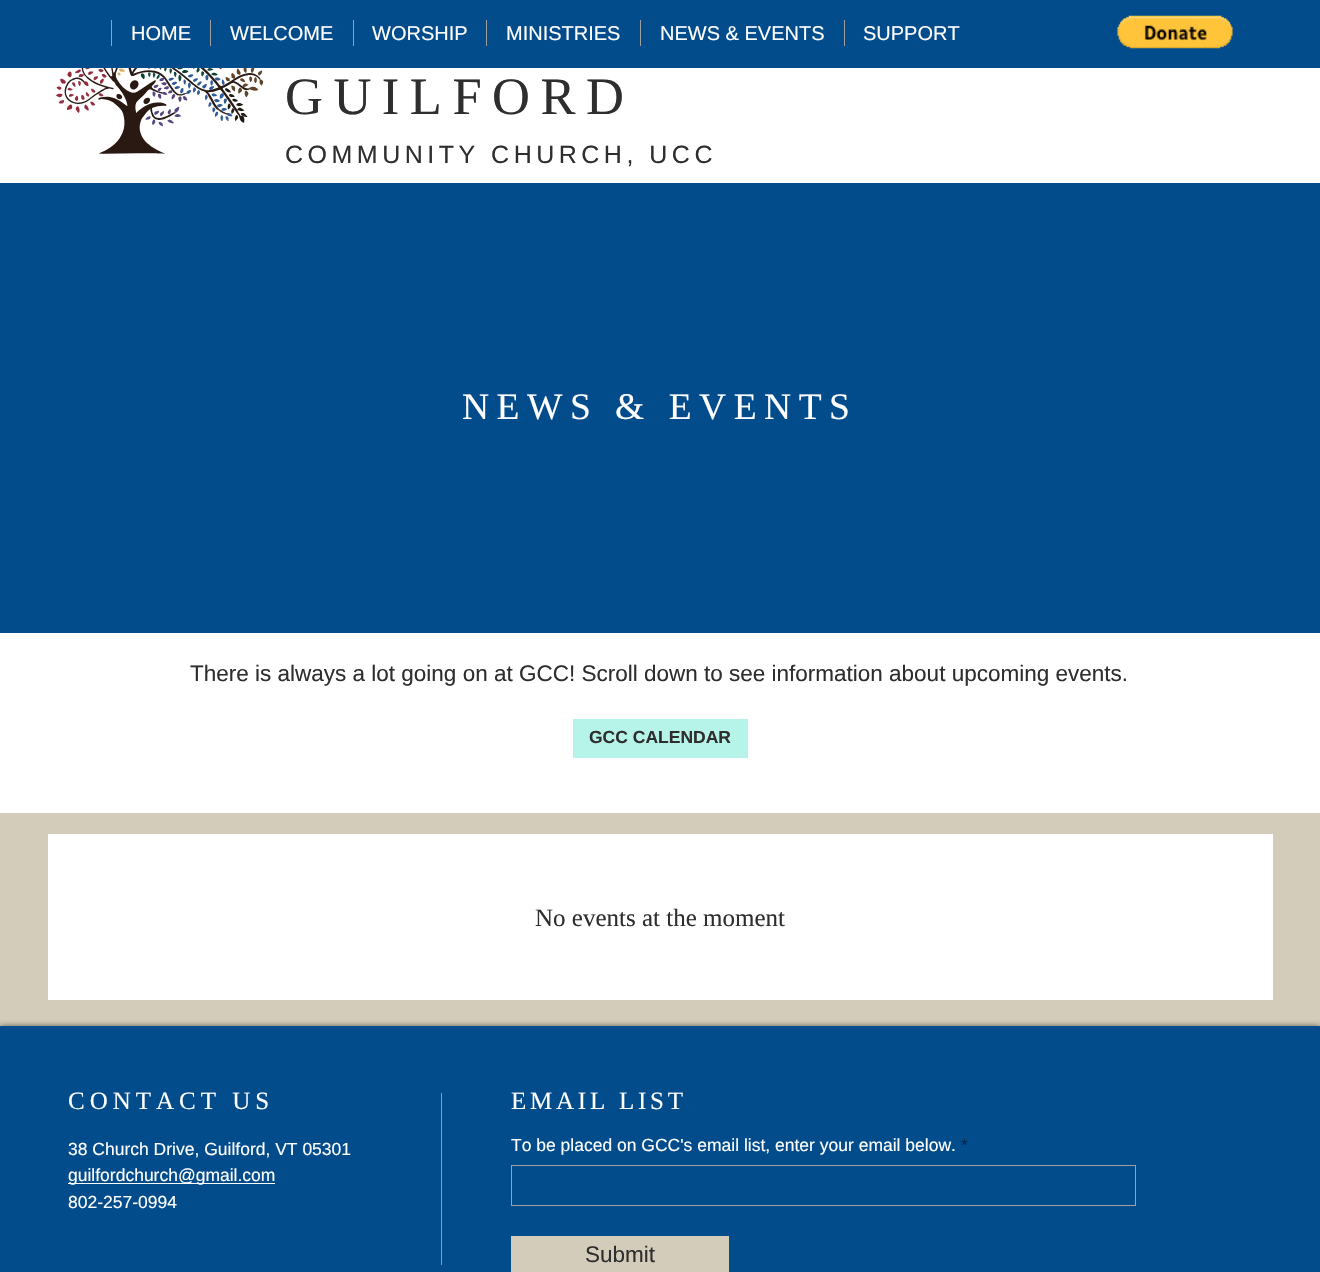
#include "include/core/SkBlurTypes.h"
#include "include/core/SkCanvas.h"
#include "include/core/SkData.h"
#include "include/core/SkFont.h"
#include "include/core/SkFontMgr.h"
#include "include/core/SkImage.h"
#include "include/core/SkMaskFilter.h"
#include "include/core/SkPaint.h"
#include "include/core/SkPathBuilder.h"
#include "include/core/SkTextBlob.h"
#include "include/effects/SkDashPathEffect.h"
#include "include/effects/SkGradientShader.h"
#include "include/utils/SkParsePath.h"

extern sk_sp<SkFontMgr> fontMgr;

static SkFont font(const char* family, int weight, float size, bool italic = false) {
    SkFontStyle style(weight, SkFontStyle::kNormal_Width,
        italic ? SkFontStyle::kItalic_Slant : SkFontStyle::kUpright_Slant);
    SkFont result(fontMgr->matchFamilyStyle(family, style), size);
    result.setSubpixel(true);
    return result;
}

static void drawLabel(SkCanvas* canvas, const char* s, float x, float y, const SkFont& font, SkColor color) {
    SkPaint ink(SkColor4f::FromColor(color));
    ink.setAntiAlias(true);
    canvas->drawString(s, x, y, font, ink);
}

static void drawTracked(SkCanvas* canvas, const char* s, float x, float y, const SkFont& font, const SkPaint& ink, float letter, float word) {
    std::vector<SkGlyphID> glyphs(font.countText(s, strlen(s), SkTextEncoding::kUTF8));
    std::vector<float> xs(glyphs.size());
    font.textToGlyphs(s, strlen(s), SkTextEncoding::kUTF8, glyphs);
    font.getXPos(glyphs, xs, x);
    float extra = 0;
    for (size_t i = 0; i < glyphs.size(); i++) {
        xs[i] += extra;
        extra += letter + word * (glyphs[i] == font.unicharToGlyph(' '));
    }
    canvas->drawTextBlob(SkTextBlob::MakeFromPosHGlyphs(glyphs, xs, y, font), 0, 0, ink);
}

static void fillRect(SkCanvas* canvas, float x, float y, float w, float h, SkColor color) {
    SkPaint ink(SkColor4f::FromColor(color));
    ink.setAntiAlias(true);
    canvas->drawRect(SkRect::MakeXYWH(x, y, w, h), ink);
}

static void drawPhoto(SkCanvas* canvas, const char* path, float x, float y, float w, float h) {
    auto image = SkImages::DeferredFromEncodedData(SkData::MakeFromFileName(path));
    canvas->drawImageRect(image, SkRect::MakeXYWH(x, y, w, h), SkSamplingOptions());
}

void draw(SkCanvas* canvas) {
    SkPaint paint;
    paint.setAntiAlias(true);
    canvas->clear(0xFFFFFFFF);
    fillRect(canvas, 0, 0, 1320, 68, 0xFF034C8C);
    fillRect(canvas, 111, 20, 1, 26, 0xFFA0A09F);
    SkFont font1 = font("Liberation Sans", 400, 20);
    drawLabel(canvas, "HOME", 131, 40, font1, 0xFFFFFFFF);
    fillRect(canvas, 210, 20, 1, 26, 0xFFA0A09F);
    drawLabel(canvas, "WELCOME", 230, 40, font1, 0xFFFFFFFF);
    fillRect(canvas, 353, 20, 1, 26, 0xFFA0A09F);
    drawLabel(canvas, "WORSHIP", 372, 40, font1, 0xFFFFFFFF);
    fillRect(canvas, 486, 20, 1, 26, 0xFFA0A09F);
    drawLabel(canvas, "MINISTRIES", 506, 40, font1, 0xFFFFFFFF);
    fillRect(canvas, 640, 20, 1, 26, 0xFFA0A09F);
    drawLabel(canvas, "NEWS & EVENTS", 660, 40, font1, 0xFFFFFFFF);
    fillRect(canvas, 844, 20, 1, 26, 0xFFA0A09F);
    drawLabel(canvas, "SUPPORT", 863, 40, font1, 0xFFFFFFFF);
    drawPhoto(canvas, "assets/img1.png", 1117, 15, 116, 34);
    drawPhoto(canvas, "assets/img2.png", 55, 68, 209, 86);
    SkFont font2 = font("Liberation Serif", 400, 52.5f);
    paint.setColor(0xFF2F2E2E);
    drawTracked(canvas, "GUILFORD", 285, 114, font2, paint, 10.5f, 0);
    SkFont font3 = font("Liberation Sans", 400, 25);
    drawTracked(canvas, "COMMUNITY CHURCH, UCC", 285, 163, font3, paint, 4.5f, 0);
    fillRect(canvas, 0, 183, 1320, 450, 0xFF034C8C);
    SkFont font4 = font("Liberation Serif", 400, 37.5f);
    paint.setColor(0xFFFFFFFF);
    drawTracked(canvas, "NEWS & EVENTS", 462, 419, font4, paint, 7.5f, 0);
    SkFont font5 = font("Liberation Sans", 400, 22.5f);
    drawLabel(canvas, "There is always a lot going on at GCC! Scroll down to see information about upcoming events.", 190, 681, font5, 0xFF2F2E2E);
    fillRect(canvas, 573, 719, 175, 39, 0xFFB6F3E8);
    SkFont font6 = font("Liberation Sans", 700, 17.5f);
    drawLabel(canvas, "GCC CALENDAR", 589, 743, font6, 0xFF2F2E2E);
    fillRect(canvas, 0, 813, 1320, 213, 0xFFD3CCBA);
    fillRect(canvas, 48, 834, 1225, 166, 0xFFFFFFFF);
    SkFont font7 = font("Liberation Serif", 400, 25);
    drawLabel(canvas, "No events at the moment", 535, 926, font7, 0xFF2F2E2E);
    paint.setColor(0xB82F2E2E);
    paint.setMaskFilter(SkMaskFilter::MakeBlur(kNormal_SkBlurStyle, 3));
    canvas->drawRect(SkRect::MakeXYWH(0, 1026, 1320, 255), paint);
    paint.setMaskFilter(nullptr);
    fillRect(canvas, 0, 1026, 1320, 246, 0xFF034C8C);
    paint.setColor(0xFFFFFFFF);
    drawTracked(canvas, "CONTACT US", 68, 1109, font7, paint, 5, 0);
    fillRect(canvas, 441, 1093, 1, 172, 0xFF999999);
    drawTracked(canvas, "EMAIL LIST", 511, 1109, font7, paint, 3.75f, 0);
    SkFont font8 = font("Liberation Sans", 400, 17.5f);
    drawLabel(canvas, "To be placed on GCC's email list, enter your email below.", 511, 1151, font8, 0xFFFFFFFF);
    drawLabel(canvas, "*", 961, 1151, font8, 0xFF012646);
    paint.setStroke(true);
    paint.setStrokeWidth(1);
    paint.setColor(0xFFA0A09F);
    canvas->drawRect(SkRect::MakeXYWH(511.5f, 1165.5f, 624, 40), paint);
    fillRect(canvas, 511, 1236, 218, 36, 0xFFD3CCBA);
    drawLabel(canvas, "Submit", 585, 1262, font5, 0xFF2F2E2E);
    drawLabel(canvas, "38 Church Drive, Guilford, VT 05301", 68, 1155, font8, 0xFFFFFFFF);
    fillRect(canvas, 68, 1183, 207, 1, 0xFFFFFFFF);
    drawLabel(canvas, "guilfordchurch@gmail.com", 68, 1181, font8, 0xFFFFFFFF);
    drawLabel(canvas, "802-257-0994", 68, 1208, font8, 0xFFFFFFFF);
}
